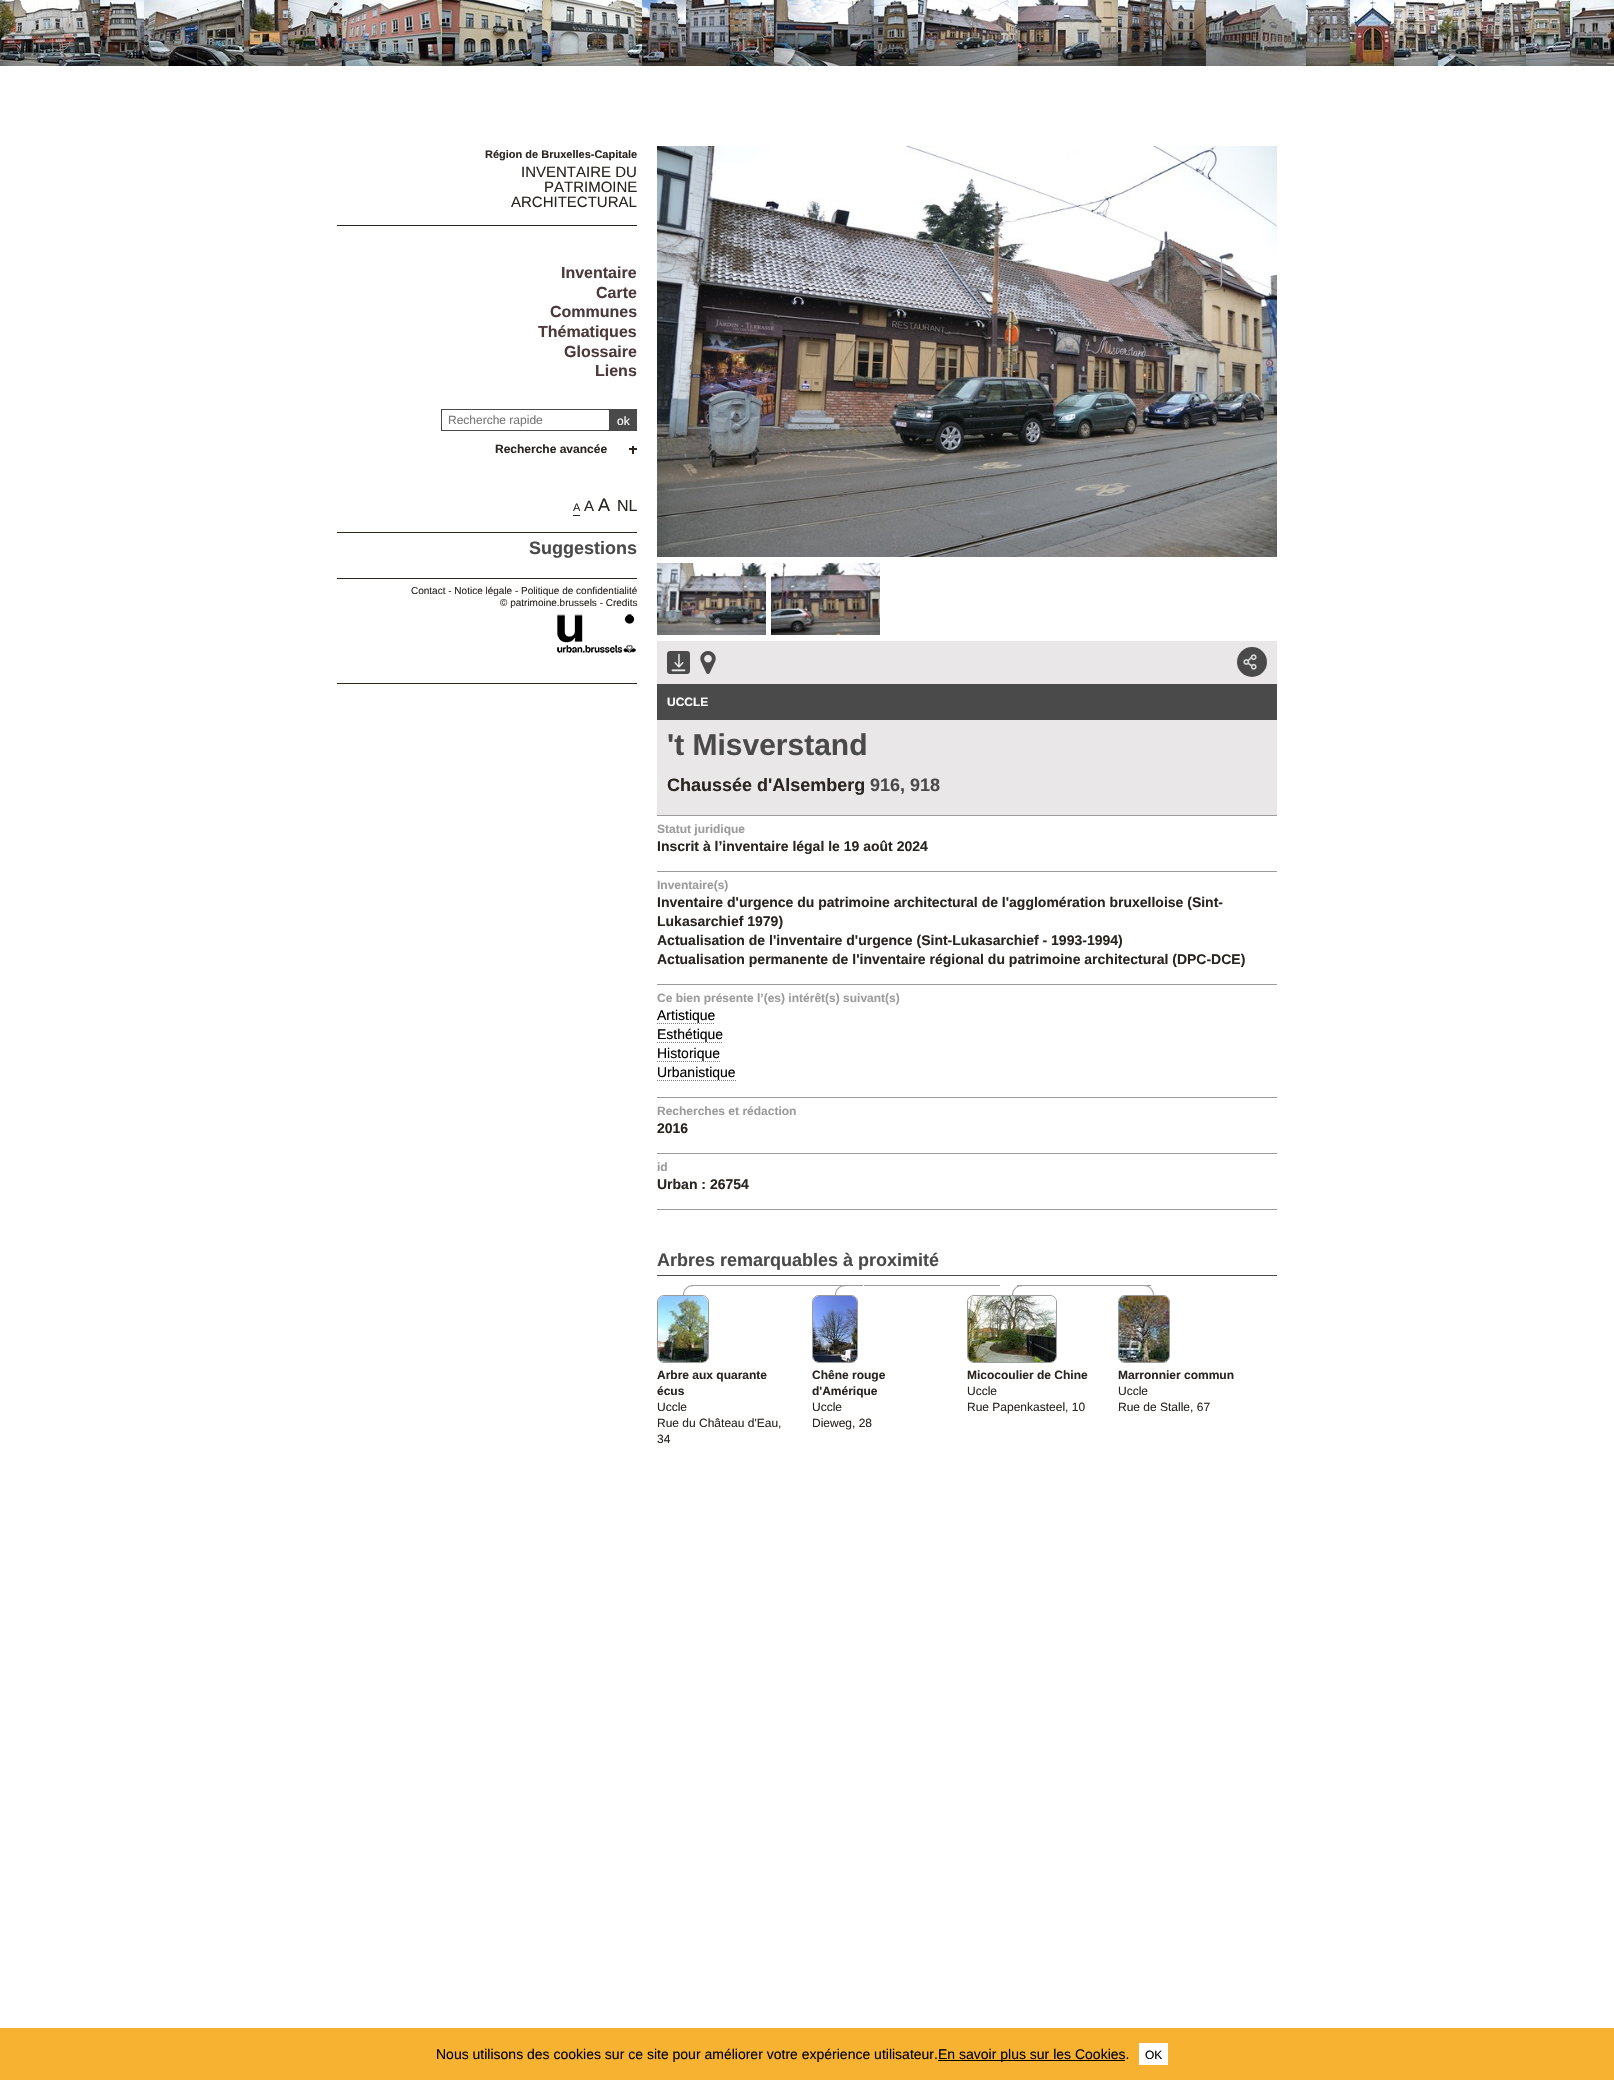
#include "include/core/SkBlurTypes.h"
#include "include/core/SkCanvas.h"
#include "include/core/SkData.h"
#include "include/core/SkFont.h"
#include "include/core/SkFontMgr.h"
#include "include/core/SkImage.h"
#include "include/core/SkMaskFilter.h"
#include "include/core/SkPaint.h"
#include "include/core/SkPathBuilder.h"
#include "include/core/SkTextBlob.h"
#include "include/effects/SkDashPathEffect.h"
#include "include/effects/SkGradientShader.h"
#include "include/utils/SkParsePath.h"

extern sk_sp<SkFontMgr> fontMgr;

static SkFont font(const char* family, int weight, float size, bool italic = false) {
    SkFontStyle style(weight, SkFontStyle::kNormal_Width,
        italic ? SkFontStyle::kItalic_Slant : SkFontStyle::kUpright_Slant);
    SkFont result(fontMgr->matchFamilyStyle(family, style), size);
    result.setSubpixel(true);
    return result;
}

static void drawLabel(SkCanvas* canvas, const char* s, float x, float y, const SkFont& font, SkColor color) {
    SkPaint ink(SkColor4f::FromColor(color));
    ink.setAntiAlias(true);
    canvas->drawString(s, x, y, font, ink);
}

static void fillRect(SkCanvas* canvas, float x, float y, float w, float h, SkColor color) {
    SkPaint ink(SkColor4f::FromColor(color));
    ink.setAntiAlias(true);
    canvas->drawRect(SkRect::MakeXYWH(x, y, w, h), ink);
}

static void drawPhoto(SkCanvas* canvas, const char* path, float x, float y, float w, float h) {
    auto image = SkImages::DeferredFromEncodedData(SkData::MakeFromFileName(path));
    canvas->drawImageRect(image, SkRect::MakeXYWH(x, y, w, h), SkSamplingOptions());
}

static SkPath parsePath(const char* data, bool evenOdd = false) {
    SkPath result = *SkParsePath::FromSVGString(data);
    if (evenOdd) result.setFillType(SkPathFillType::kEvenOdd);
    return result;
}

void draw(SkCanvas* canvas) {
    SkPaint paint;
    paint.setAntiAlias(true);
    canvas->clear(0xFFFFFFFF);
    drawPhoto(canvas, "assets/img1.png", 0, 0, 100, 66);
    drawPhoto(canvas, "assets/img2.png", 100, 0, 44, 66);
    drawPhoto(canvas, "assets/img3.png", 144, 0, 100, 66);
    drawPhoto(canvas, "assets/img4.png", 244, 0, 44, 66);
    drawPhoto(canvas, "assets/img5.png", 288, 0, 54, 66);
    drawPhoto(canvas, "assets/img6.png", 342, 0, 100, 66);
    drawPhoto(canvas, "assets/img7.png", 442, 0, 100, 66);
    drawPhoto(canvas, "assets/img8.png", 542, 0, 100, 66);
    drawPhoto(canvas, "assets/img9.png", 642, 0, 44, 66);
    drawPhoto(canvas, "assets/img10.png", 686, 0, 44, 66);
    drawPhoto(canvas, "assets/img11.png", 730, 0, 44, 66);
    drawPhoto(canvas, "assets/img12.png", 774, 0, 100, 66);
    drawPhoto(canvas, "assets/img13.png", 874, 0, 44, 66);
    drawPhoto(canvas, "assets/img14.png", 918, 0, 100, 66);
    drawPhoto(canvas, "assets/img15.png", 1018, 0, 100, 66);
    drawPhoto(canvas, "assets/img16.png", 1118, 0, 44, 66);
    drawPhoto(canvas, "assets/img17.png", 1162, 0, 44, 66);
    drawPhoto(canvas, "assets/img18.png", 1206, 0, 100, 66);
    drawPhoto(canvas, "assets/img19.png", 1306, 0, 44, 66);
    drawPhoto(canvas, "assets/img20.png", 1350, 0, 44, 66);
    drawPhoto(canvas, "assets/img21.png", 1394, 0, 44, 66);
    drawPhoto(canvas, "assets/img22.png", 1438, 0, 44, 66);
    drawPhoto(canvas, "assets/img23.png", 1482, 0, 44, 66);
    drawPhoto(canvas, "assets/img24.png", 1526, 0, 44, 66);
    drawPhoto(canvas, "assets/img25.png", 1570, 0, 44, 66);
    fillRect(canvas, 337, 225, 300, 1, 0xFF2A2520);
    SkFont font1 = font("Liberation Sans", 700, 11);
    drawLabel(canvas, "Région de Bruxelles-Capitale", 485, 158, font1, 0xFF2A2520);
    SkFont font2 = font("Liberation Sans", 400, 15);
    drawLabel(canvas, "INVENTAIRE DU", 521, 177, font2, 0xFF2A2520);
    drawLabel(canvas, "PATRIMOINE", 544, 192, font2, 0xFF2A2520);
    drawLabel(canvas, "ARCHITECTURAL", 511, 207, font2, 0xFF2A2520);
    SkFont font3 = font("Liberation Sans", 700, 16);
    drawLabel(canvas, "Inventaire", 561, 278, font3, 0xFF4C3A3A);
    drawLabel(canvas, "Carte", 596, 298, font3, 0xFF4C3A3A);
    drawLabel(canvas, "Communes", 550, 317, font3, 0xFF4C3A3A);
    drawLabel(canvas, "Thématiques", 538, 337, font3, 0xFF4C3A3A);
    drawLabel(canvas, "Glossaire", 564, 357, font3, 0xFF4C3A3A);
    drawLabel(canvas, "Liens", 595, 376, font3, 0xFF4C3A3A);
    fillRect(canvas, 337, 683, 300, 1, 0xFF2A2520);
    paint.setStroke(true);
    paint.setStrokeWidth(1);
    paint.setColor(0xFF4A4A4A);
    canvas->drawRect(SkRect::MakeXYWH(441.5f, 409.5f, 168, 21), paint);
    SkFont font4 = font("Liberation Sans", 400, 12);
    drawLabel(canvas, "Recherche rapide", 448, 424, font4, 0xFF757575);
    fillRect(canvas, 610, 409, 27, 22, 0xFF4A4A4A);
    drawLabel(canvas, "ok", 617, 425, font4, 0xFFFFFFFF);
    SkFont font5 = font("Liberation Sans", 700, 12);
    drawLabel(canvas, "Recherche avancée", 495, 453, font5, 0xFF2A2520);
    fillRect(canvas, 632, 446, 2, 8, 0xFF2A2520);
    fillRect(canvas, 629, 448, 8, 2, 0xFF2A2520);
    fillRect(canvas, 573, 515, 7, 1, 0xFF2A2520);
    SkFont font6 = font("Liberation Sans", 400, 11);
    drawLabel(canvas, "A", 573, 511, font6, 0xFF2A2520);
    drawLabel(canvas, "A", 584, 511, font2, 0xFF2A2520);
    SkFont font7 = font("Liberation Sans", 400, 18);
    drawLabel(canvas, "A", 598, 511, font7, 0xFF2A2520);
    SkFont font8 = font("Liberation Sans", 400, 16);
    drawLabel(canvas, "NL", 617, 511, font8, 0xFF2A2520);
    fillRect(canvas, 337, 532, 300, 1, 0xFF2A2520);
    SkFont font9 = font("Liberation Sans", 700, 18);
    drawLabel(canvas, "Suggestions", 529, 554, font9, 0xFF4A4A4A);
    fillRect(canvas, 337, 578, 300, 1, 0xFF2A2520);
    SkFont font10 = font("Liberation Sans", 400, 10);
    drawLabel(canvas, "Contact - Notice légale - Politique de confidentialité", 411, 594, font10, 0xFF2A2520);
    drawLabel(canvas, "© patrimoine.brussels - Credits", 500, 606, font10, 0xFF2A2520);
    drawPhoto(canvas, "assets/img26.png", 557, 614, 79, 39);
    drawPhoto(canvas, "assets/img27.png", 657, 146, 620, 411);
    drawPhoto(canvas, "assets/img28.png", 657, 563, 109, 72);
    drawPhoto(canvas, "assets/img29.png", 771, 563, 109, 72);
    fillRect(canvas, 657, 641, 620, 174, 0xFFE9E7E7);
    fillRect(canvas, 657, 815, 620, 1, 0xFF9B9B9B);
    drawPhoto(canvas, "assets/img30.png", 667, 651, 23, 23);
    drawPhoto(canvas, "assets/img31.png", 700, 651, 16, 23);
    paint.setStroke(false);
    canvas->drawCircle(1252, 662, 15, paint);
    drawPhoto(canvas, "assets/img32.png", 1243, 654, 14, 16);
    fillRect(canvas, 657, 684, 620, 36, 0xFF4A4A4A);
    drawLabel(canvas, "UCCLE", 667, 706, font5, 0xFFFFFFFF);
    SkFont font11 = font("Liberation Sans", 700, 30);
    drawLabel(canvas, "'t Misverstand", 667, 755, font11, 0xFF4A4A4A);
    drawLabel(canvas, "Chaussée d'Alsemberg", 667, 791, font9, 0xFF2A2520);
    drawLabel(canvas, "916, 918", 870, 791, font9, 0xFF4A4A4A);
    fillRect(canvas, 657, 871, 620, 1, 0xFF9B9B9B);
    drawLabel(canvas, "Statut juridique", 657, 833, font5, 0xFF9B9B9B);
    SkFont font12 = font("Liberation Sans", 700, 14);
    drawLabel(canvas, "Inscrit à l’inventaire légal le 19 août 2024", 657, 851, font12, 0xFF2A2520);
    fillRect(canvas, 657, 984, 620, 1, 0xFF9B9B9B);
    drawLabel(canvas, "Inventaire(s)", 657, 889, font5, 0xFF9B9B9B);
    drawLabel(canvas, "Inventaire d'urgence du patrimoine architectural de l'agglomération bruxelloise (Sint-", 657, 907, font12, 0xFF2A2520);
    drawLabel(canvas, "Lukasarchief 1979)", 657, 926, font12, 0xFF2A2520);
    drawLabel(canvas, "Actualisation de l'inventaire d'urgence (Sint-Lukasarchief - 1993-1994)", 657, 945, font12, 0xFF2A2520);
    drawLabel(canvas, "Actualisation permanente de l'inventaire régional du patrimoine architectural (DPC-DCE)", 657, 964, font12, 0xFF2A2520);
    fillRect(canvas, 657, 1097, 620, 1, 0xFF9B9B9B);
    drawLabel(canvas, "Ce bien présente l’(es) intérêt(s) suivant(s)", 657, 1002, font5, 0xFF9B9B9B);
    SkFont font13 = font("Liberation Sans", 400, 14);
    drawLabel(canvas, "Artistique", 657, 1020, font13, 0xFF000000);
    paint.setStroke(true);
    paint.setColor(0xFF808080);
    paint.setPathEffect(SkDashPathEffect::Make({{1, 1}}, 0));
    canvas->drawPath(parsePath("M657 1023.5H715"), paint);
    paint.setPathEffect(nullptr);
    drawLabel(canvas, "Esthétique", 657, 1039, font13, 0xFF000000);
    paint.setPathEffect(SkDashPathEffect::Make({{1, 1}}, 0));
    canvas->drawPath(parsePath("M657 1042.5H723"), paint);
    paint.setPathEffect(nullptr);
    drawLabel(canvas, "Historique", 657, 1058, font13, 0xFF000000);
    paint.setPathEffect(SkDashPathEffect::Make({{1, 1}}, 0));
    canvas->drawPath(parsePath("M657 1061.5H720"), paint);
    paint.setPathEffect(nullptr);
    drawLabel(canvas, "Urbanistique", 657, 1077, font13, 0xFF000000);
    paint.setPathEffect(SkDashPathEffect::Make({{1, 1}}, 0));
    canvas->drawPath(parsePath("M657 1080.5H736"), paint);
    paint.setPathEffect(nullptr);
    fillRect(canvas, 657, 1153, 620, 1, 0xFF9B9B9B);
    drawLabel(canvas, "Recherches et rédaction", 657, 1115, font5, 0xFF9B9B9B);
    drawLabel(canvas, "2016", 657, 1133, font12, 0xFF2A2520);
    fillRect(canvas, 657, 1209, 620, 1, 0xFF9B9B9B);
    drawLabel(canvas, "id", 657, 1171, font5, 0xFF9B9B9B);
    drawLabel(canvas, "Urban : 26754", 657, 1189, font12, 0xFF2A2520);
    fillRect(canvas, 657, 1275, 620, 1, 0xFF4A4A4A);
    drawLabel(canvas, "Arbres remarquables à proximité", 657, 1266, font9, 0xFF4A4A4A);
    paint.setStroke(false);
    paint.setColor(0xFF9B9B9B);
    canvas->drawPath(parsePath("M693 1285V1305H683V1295C683 1289.5 687.5 1285 693 1285ZM693 1286V1305H684V1295C684 1290 688 1286 693 1286Z", true), paint);
    fillRect(canvas, 693, 1285, 170, 1, 0xFF9B9B9B);
    paint.setStroke(true);
    canvas->drawRoundRect(SkRect::MakeXYWH(657.5f, 1295.5f, 51, 67), 6.5f, 6.5f, paint);
    drawPhoto(canvas, "assets/img33.png", 658, 1296, 50, 66);
    drawLabel(canvas, "Arbre aux quarante", 657, 1379, font5, 0xFF2A2520);
    drawLabel(canvas, "écus", 657, 1395, font5, 0xFF2A2520);
    drawLabel(canvas, "Uccle", 657, 1411, font4, 0xFF2A2520);
    drawLabel(canvas, "Rue du Château d'Eau,", 657, 1427, font4, 0xFF2A2520);
    drawLabel(canvas, "34", 657, 1443, font4, 0xFF2A2520);
    fillRect(canvas, 864, 1285, 136, 1, 0xFF9B9B9B);
    paint.setStroke(false);
    canvas->drawPath(parsePath("M845 1285V1305H835V1295C835 1289.5 839.5 1285 845 1285ZM845 1286V1305H836V1295C836 1290 840 1286 845 1286Z", true), paint);
    paint.setStroke(true);
    canvas->drawRoundRect(SkRect::MakeXYWH(812.5f, 1295.5f, 45, 67), 6.5f, 6.5f, paint);
    drawPhoto(canvas, "assets/img34.png", 813, 1296, 44, 66);
    drawLabel(canvas, "Chêne rouge", 812, 1379, font5, 0xFF2A2520);
    drawLabel(canvas, "d'Amérique", 812, 1395, font5, 0xFF2A2520);
    drawLabel(canvas, "Uccle", 812, 1411, font4, 0xFF2A2520);
    drawLabel(canvas, "Dieweg, 28", 812, 1427, font4, 0xFF2A2520);
    paint.setStroke(false);
    canvas->drawPath(parsePath("M1022 1285V1305H1012V1295C1012 1289.5 1016.5 1285 1022 1285ZM1022 1286V1305H1013V1295C1013 1290 1017 1286 1022 1286Z", true), paint);
    fillRect(canvas, 1017, 1285, 134, 1, 0xFF9B9B9B);
    paint.setStroke(true);
    canvas->drawRoundRect(SkRect::MakeXYWH(967.5f, 1295.5f, 89, 67), 6.5f, 6.5f, paint);
    drawPhoto(canvas, "assets/img35.png", 968, 1296, 88, 66);
    drawLabel(canvas, "Micocoulier de Chine", 967, 1379, font5, 0xFF2A2520);
    drawLabel(canvas, "Uccle", 967, 1395, font4, 0xFF2A2520);
    drawLabel(canvas, "Rue Papenkasteel, 10", 967, 1411, font4, 0xFF2A2520);
    paint.setStroke(false);
    canvas->drawPath(parsePath("M1144 1285C1149.5 1285 1154 1289.5 1154 1295V1305H1144ZM1144 1286C1149 1286 1153 1290 1153 1295V1305H1144Z", true), paint);
    paint.setStroke(true);
    canvas->drawRoundRect(SkRect::MakeXYWH(1118.5f, 1295.5f, 51, 67), 6.5f, 6.5f, paint);
    drawPhoto(canvas, "assets/img36.png", 1119, 1296, 50, 66);
    drawLabel(canvas, "Marronnier commun", 1118, 1379, font5, 0xFF2A2520);
    drawLabel(canvas, "Uccle", 1118, 1395, font4, 0xFF2A2520);
    drawLabel(canvas, "Rue de Stalle, 67", 1118, 1411, font4, 0xFF2A2520);
    fillRect(canvas, 0, 2028, 1614, 52, 0xFFF8B232);
    drawLabel(canvas, "Nous utilisons des cookies sur ce site pour améliorer votre expérience utilisateur.", 436, 2059, font13, 0xFF000000);
    fillRect(canvas, 938, 2060, 187, 1, 0xFF000000);
    drawLabel(canvas, "En savoir plus sur les Cookies.", 938, 2059, font13, 0xFF000000);
    fillRect(canvas, 1139, 2043, 29, 22, 0xFFFFFFFF);
    drawLabel(canvas, "OK", 1145, 2059, font4, 0xFF000000);
}
